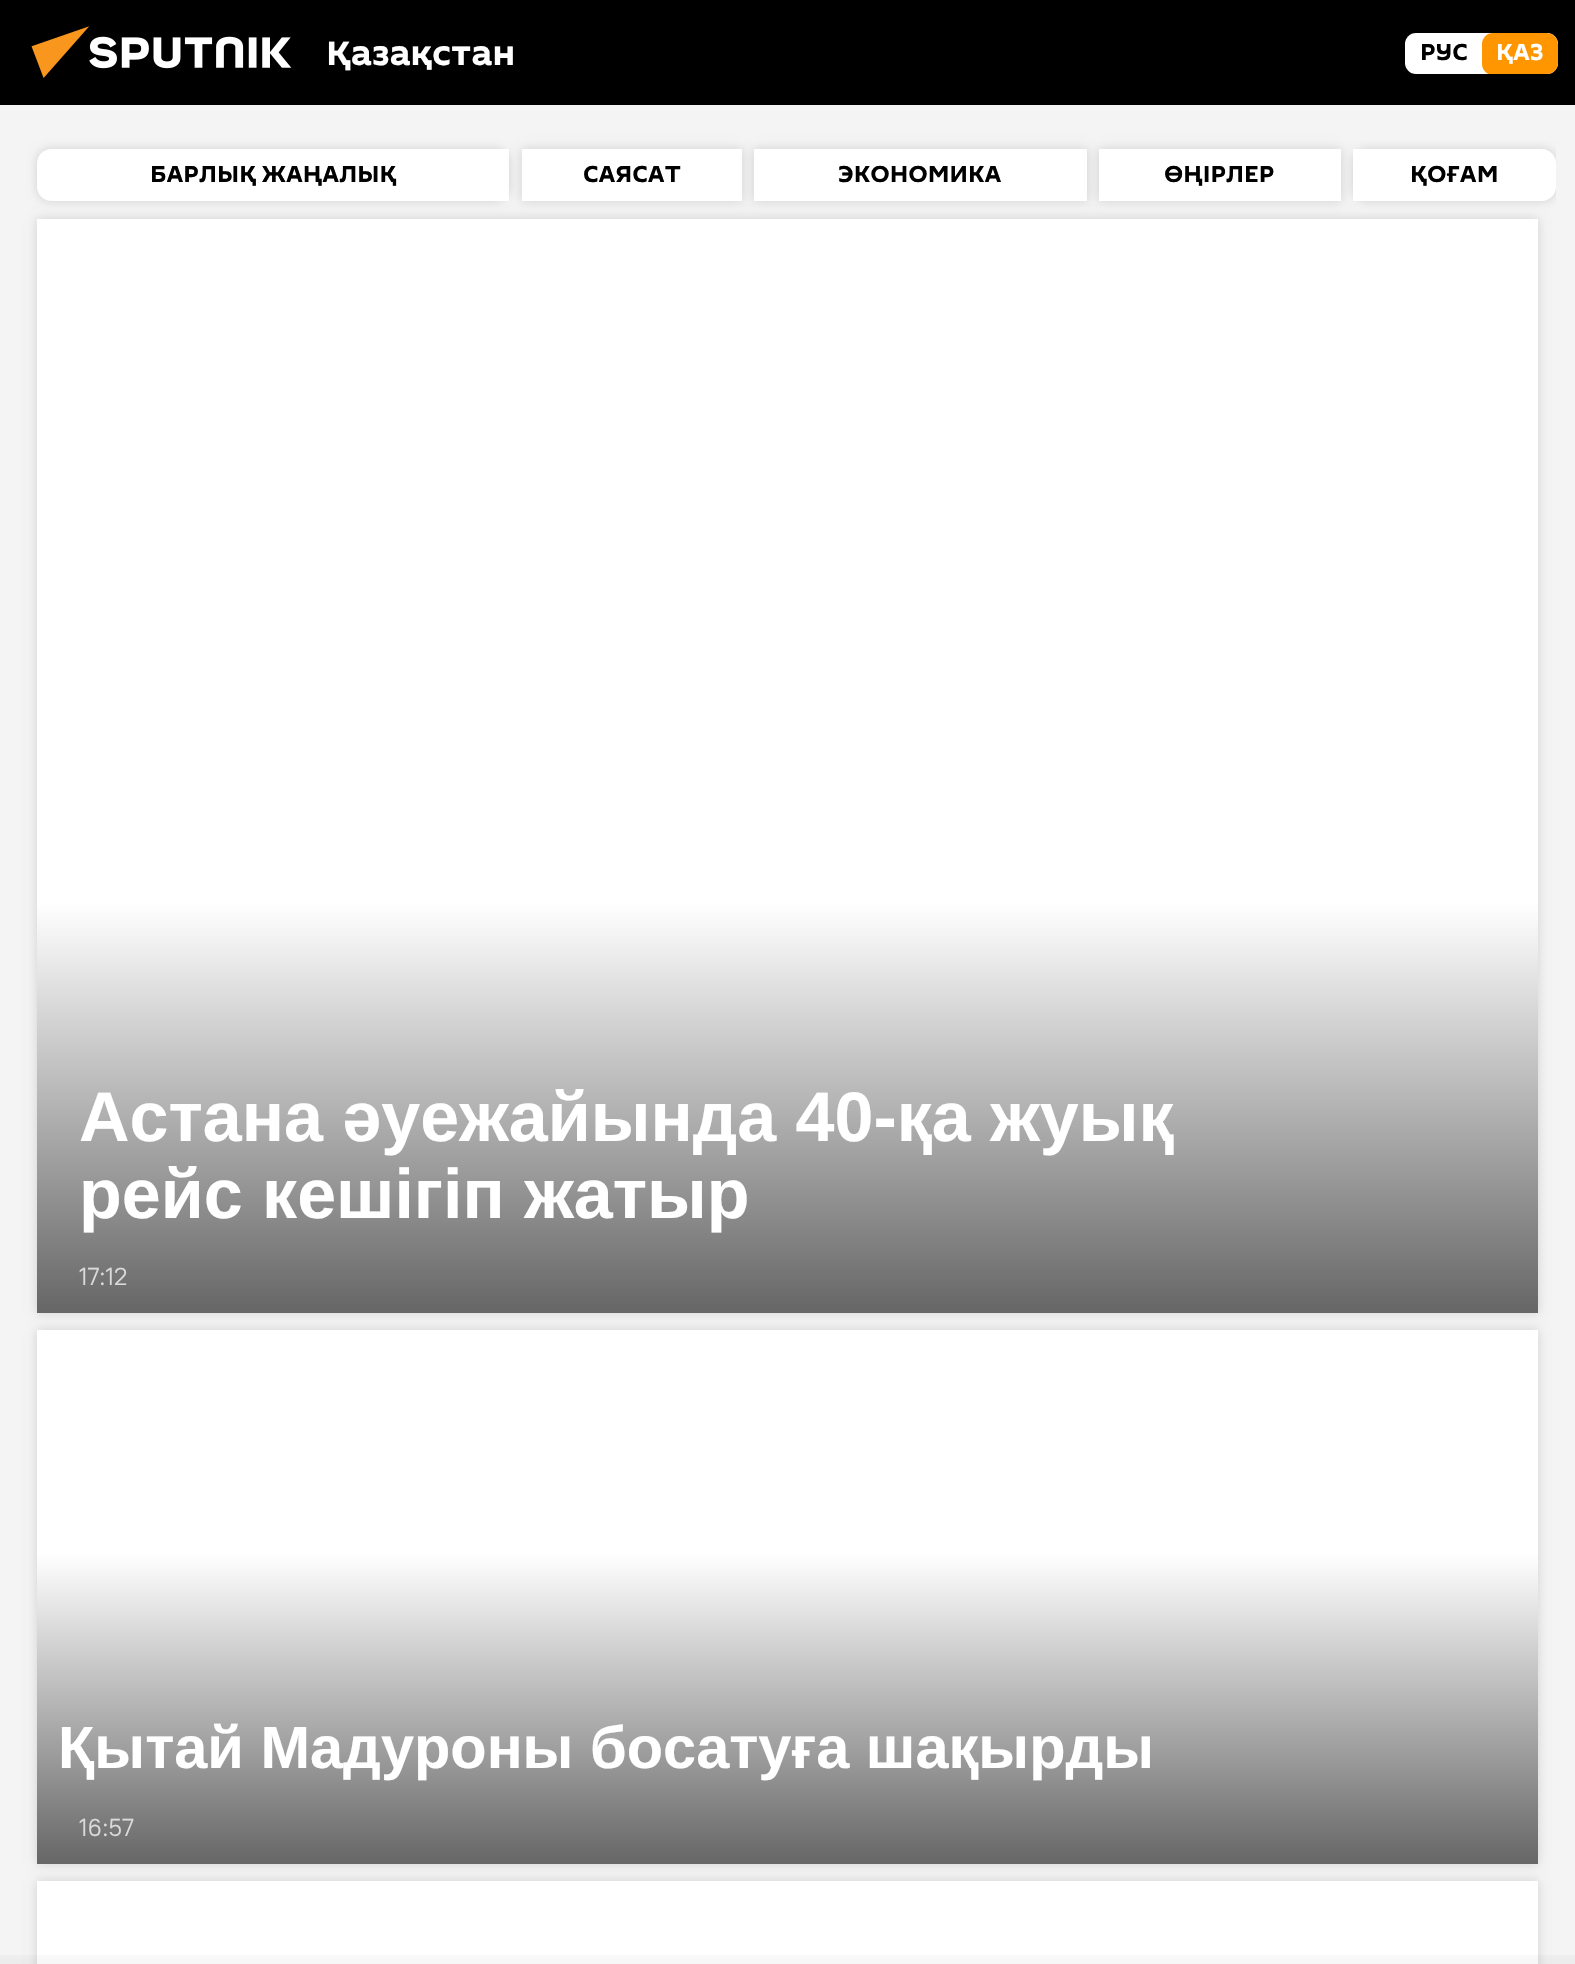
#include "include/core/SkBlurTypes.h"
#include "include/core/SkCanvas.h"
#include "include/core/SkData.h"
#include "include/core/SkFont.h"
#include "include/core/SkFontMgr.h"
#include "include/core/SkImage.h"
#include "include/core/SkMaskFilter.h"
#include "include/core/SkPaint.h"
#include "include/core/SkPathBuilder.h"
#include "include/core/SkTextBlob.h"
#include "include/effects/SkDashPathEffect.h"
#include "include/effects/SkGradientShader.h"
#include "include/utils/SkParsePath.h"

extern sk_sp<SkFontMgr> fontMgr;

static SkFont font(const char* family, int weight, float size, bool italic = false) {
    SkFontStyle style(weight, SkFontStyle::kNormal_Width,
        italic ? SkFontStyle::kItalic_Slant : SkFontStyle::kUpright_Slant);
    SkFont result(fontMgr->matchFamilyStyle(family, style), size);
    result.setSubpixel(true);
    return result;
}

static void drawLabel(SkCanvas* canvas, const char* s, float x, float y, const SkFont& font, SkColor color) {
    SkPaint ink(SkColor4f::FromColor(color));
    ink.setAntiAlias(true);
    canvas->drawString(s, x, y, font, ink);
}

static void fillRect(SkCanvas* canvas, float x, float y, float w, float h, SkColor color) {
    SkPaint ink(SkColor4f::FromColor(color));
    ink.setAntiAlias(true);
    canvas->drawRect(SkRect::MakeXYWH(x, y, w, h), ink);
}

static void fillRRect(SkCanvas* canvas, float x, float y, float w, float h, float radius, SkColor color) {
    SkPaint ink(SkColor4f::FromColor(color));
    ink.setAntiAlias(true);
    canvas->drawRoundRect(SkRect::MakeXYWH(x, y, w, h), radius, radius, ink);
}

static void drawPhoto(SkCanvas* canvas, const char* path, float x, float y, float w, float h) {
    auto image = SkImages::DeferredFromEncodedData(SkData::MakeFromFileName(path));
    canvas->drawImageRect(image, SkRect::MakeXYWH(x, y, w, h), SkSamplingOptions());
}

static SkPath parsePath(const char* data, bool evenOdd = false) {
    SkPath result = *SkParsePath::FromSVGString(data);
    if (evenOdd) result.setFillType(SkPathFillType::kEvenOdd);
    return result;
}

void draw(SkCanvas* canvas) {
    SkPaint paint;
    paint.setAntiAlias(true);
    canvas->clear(0xFFF4F4F4);
    fillRect(canvas, 0, 0, 1575, 105, 0xFF000000);
    drawPhoto(canvas, "assets/img1.png", 31, 26, 261, 52);
    SkFont font1 = font("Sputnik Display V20", 700, 33.25f);
    drawLabel(canvas, "Қазақстан", 326, 65, font1, 0xFFFFFFFF);
    fillRRect(canvas, 1405, 33, 153, 41, 11, 0xFFFFFFFF);
    SkFont font2 = font("Sputnik Display V20", 700, 22.75f);
    drawLabel(canvas, "РУС", 1420, 60, font2, 0xFF000000);
    canvas->save();
    canvas->clipPath(parsePath("M1416 33H1547C1553 33 1558 38 1558 44V63C1558 69 1553 74 1547 74H1416C1410 74 1405 69 1405 63V44C1405 38 1410 33 1416 33Z"), true);
    fillRRect(canvas, 1482, 33, 76, 42, 11, 0xFFFF9600);
    canvas->restore();
    drawLabel(canvas, "ҚАЗ", 1496, 60, font2, 0xFFFFFFFF);
    paint.setColor(0x26000000);
    paint.setMaskFilter(SkMaskFilter::MakeBlur(kNormal_SkBlurStyle, 5));
    canvas->drawRoundRect(SkRect::MakeXYWH(37, 149, 472, 52), 14, 14, paint);
    paint.setMaskFilter(nullptr);
    paint.setColor(0xFFFFFFFF);
    canvas->drawPath(parsePath("M51 149H509V201H51C43.5 201 37 194.5 37 187V163C37 155.5 43.5 149 51 149Z"), paint);
    drawLabel(canvas, "БАРЛЫҚ ЖАҢАЛЫҚ", 150, 182, font2, 0xFF000000);
    paint.setColor(0x26000000);
    paint.setMaskFilter(SkMaskFilter::MakeBlur(kNormal_SkBlurStyle, 5));
    canvas->drawRect(SkRect::MakeXYWH(522, 149, 220, 52), paint);
    paint.setMaskFilter(nullptr);
    fillRect(canvas, 522, 149, 220, 52, 0xFFFFFFFF);
    drawLabel(canvas, "САЯСАТ", 583, 182, font2, 0xFF000000);
    paint.setMaskFilter(SkMaskFilter::MakeBlur(kNormal_SkBlurStyle, 5));
    canvas->drawRect(SkRect::MakeXYWH(754, 149, 333, 52), paint);
    paint.setMaskFilter(nullptr);
    fillRect(canvas, 754, 149, 333, 52, 0xFFFFFFFF);
    drawLabel(canvas, "ЭКОНОМИКА", 838, 182, font2, 0xFF000000);
    paint.setMaskFilter(SkMaskFilter::MakeBlur(kNormal_SkBlurStyle, 5));
    canvas->drawRect(SkRect::MakeXYWH(1099, 149, 242, 52), paint);
    paint.setMaskFilter(nullptr);
    fillRect(canvas, 1099, 149, 242, 52, 0xFFFFFFFF);
    drawLabel(canvas, "ӨҢІРЛЕР", 1164, 182, font2, 0xFF000000);
    canvas->save();
    canvas->clipRect(SkRect::MakeXYWH(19, 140, 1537, 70));
    paint.setMaskFilter(SkMaskFilter::MakeBlur(kNormal_SkBlurStyle, 5));
    canvas->drawRoundRect(SkRect::MakeXYWH(1353, 149, 203, 52), 14, 14, paint);
    paint.setMaskFilter(nullptr);
    canvas->restore();
    paint.setColor(0xFFFFFFFF);
    canvas->drawPath(parsePath("M1353 149H1542C1549.5 149 1556 155.5 1556 163V187C1556 194.5 1549.5 201 1542 201H1353Z"), paint);
    drawLabel(canvas, "ҚОҒАМ", 1410, 182, font2, 0xFF000000);
    paint.setColor(0x26000000);
    paint.setMaskFilter(SkMaskFilter::MakeBlur(kNormal_SkBlurStyle, 5));
    canvas->drawRect(SkRect::MakeXYWH(37, 219, 1501, 1094), paint);
    paint.setMaskFilter(nullptr);
    fillRect(canvas, 37, 219, 1501, 684, 0xFFFFFFFF);
    {
        const SkColor colors[] = {0xFFFFFFFF, 0xFF666666};
        const float stops[] = {0, 1};
        const SkPoint ends[] = {{788, 903}, {788, 1313}};
        paint.setShader(SkGradientShader::MakeLinear(ends, colors, stops, 2, SkTileMode::kClamp));
        paint.setAlpha(255);
    }
    canvas->drawRect(SkRect::MakeXYWH(37, 903, 1501, 410), paint);
    SkFont font3 = font("Liberation Sans", 700, 70);
    drawLabel(canvas, "Астана әуежайында 40-қа жуық", 79, 1141, font3, 0xFFFFFFFF);
    drawLabel(canvas, "рейс кешігіп жатыр", 79, 1218, font3, 0xFFFFFFFF);
    SkFont font4 = font("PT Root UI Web", 400, 24.5f);
    drawLabel(canvas, "17:12", 79, 1285, font4, 0xFFDADADA);
    paint.setShader(nullptr);
    paint.setColor(0x26000000);
    paint.setMaskFilter(SkMaskFilter::MakeBlur(kNormal_SkBlurStyle, 5));
    canvas->drawRect(SkRect::MakeXYWH(37, 1330, 1501, 534), paint);
    paint.setMaskFilter(nullptr);
    fillRect(canvas, 37, 1330, 1501, 224, 0xFFFFFFFF);
    {
        const SkColor colors[] = {0xFFFFFFFF, 0xFF666666};
        const float stops[] = {0, 1};
        const SkPoint ends[] = {{788, 1554}, {788, 1864}};
        paint.setShader(SkGradientShader::MakeLinear(ends, colors, stops, 2, SkTileMode::kClamp));
        paint.setAlpha(255);
    }
    canvas->drawRect(SkRect::MakeXYWH(37, 1554, 1501, 310), paint);
    SkFont font5 = font("Liberation Sans", 700, 59.5f);
    drawLabel(canvas, "Қытай Мадуроны босатуға шақырды", 58, 1768, font5, 0xFFFFFFFF);
    drawLabel(canvas, "16:57", 79, 1836, font4, 0xFFDADADA);
    paint.setShader(nullptr);
    paint.setColor(0x26000000);
    paint.setMaskFilter(SkMaskFilter::MakeBlur(kNormal_SkBlurStyle, 5));
    canvas->drawRect(SkRect::MakeXYWH(37, 1881, 1501, 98), paint);
    paint.setMaskFilter(nullptr);
    fillRect(canvas, 37, 1881, 1501, 83, 0xFFFFFFFF);
    {
        const SkColor colors[] = {0x00000000, 0x0D000000, 0x17000000, 0x2E000000};
        const float stops[] = {0, 0.61f, 0.86f, 1};
        const SkPoint ends[] = {{788, 1939}, {788, 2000}};
        paint.setShader(SkGradientShader::MakeLinear(ends, colors, stops, 4, SkTileMode::kClamp));
        paint.setAlpha(255);
    }
    canvas->drawRect(SkRect::MakeXYWH(0, 1955, 1575, 9), paint);
}
